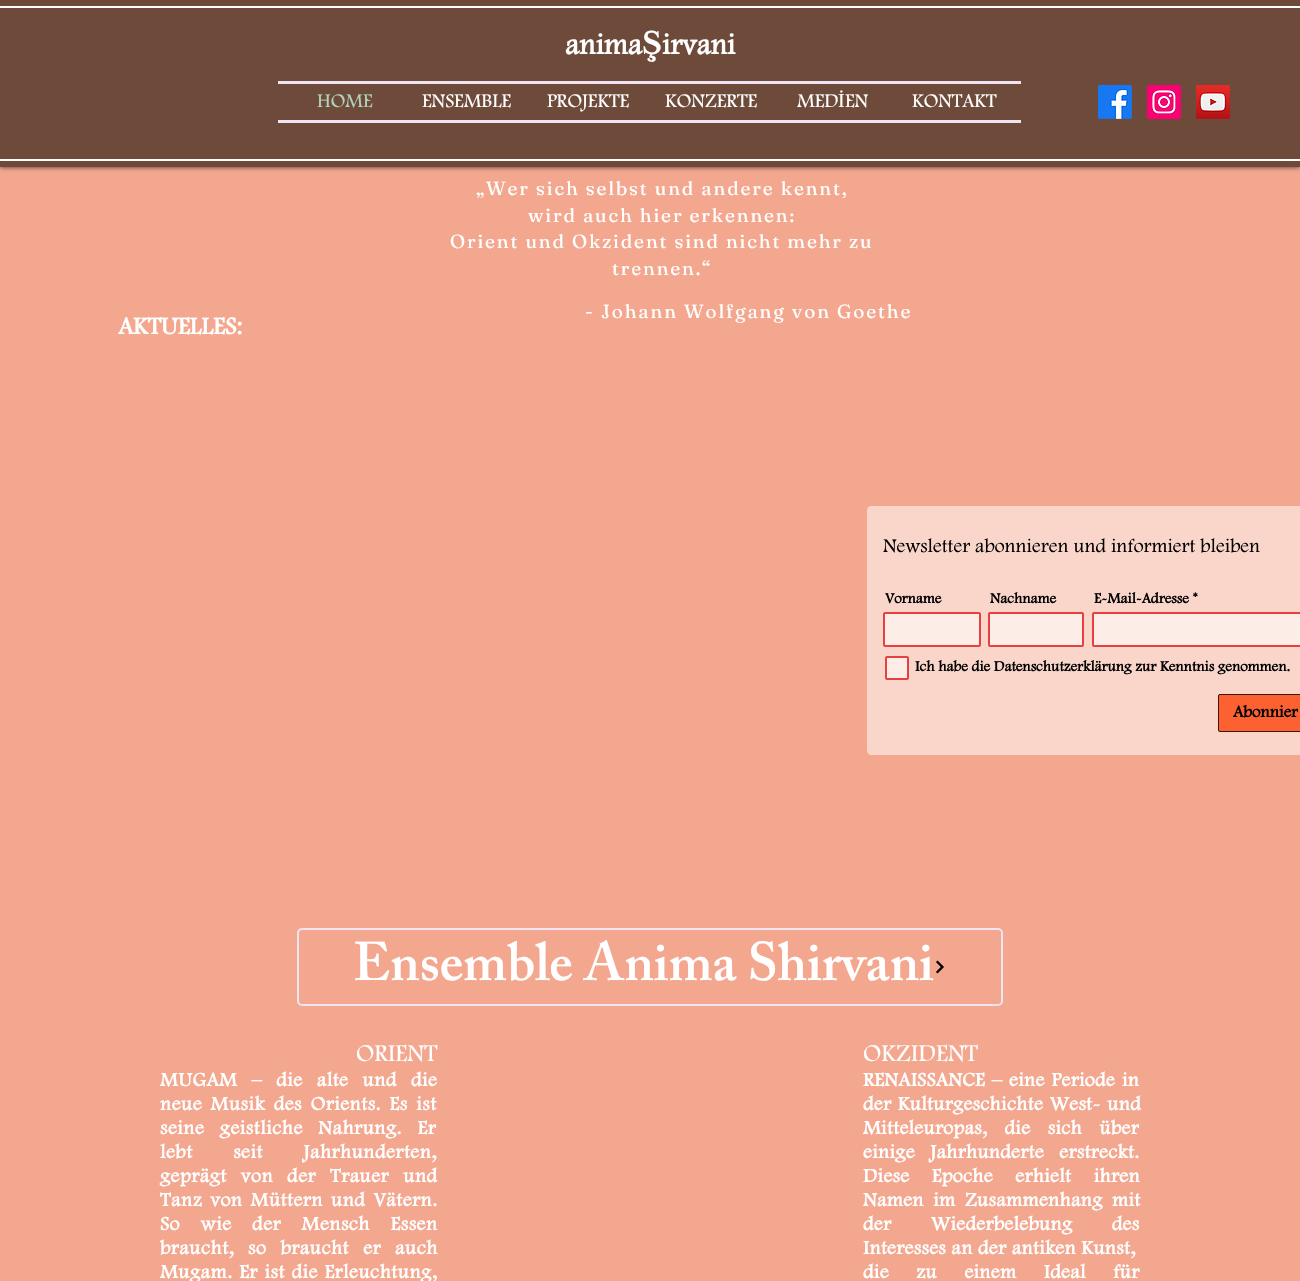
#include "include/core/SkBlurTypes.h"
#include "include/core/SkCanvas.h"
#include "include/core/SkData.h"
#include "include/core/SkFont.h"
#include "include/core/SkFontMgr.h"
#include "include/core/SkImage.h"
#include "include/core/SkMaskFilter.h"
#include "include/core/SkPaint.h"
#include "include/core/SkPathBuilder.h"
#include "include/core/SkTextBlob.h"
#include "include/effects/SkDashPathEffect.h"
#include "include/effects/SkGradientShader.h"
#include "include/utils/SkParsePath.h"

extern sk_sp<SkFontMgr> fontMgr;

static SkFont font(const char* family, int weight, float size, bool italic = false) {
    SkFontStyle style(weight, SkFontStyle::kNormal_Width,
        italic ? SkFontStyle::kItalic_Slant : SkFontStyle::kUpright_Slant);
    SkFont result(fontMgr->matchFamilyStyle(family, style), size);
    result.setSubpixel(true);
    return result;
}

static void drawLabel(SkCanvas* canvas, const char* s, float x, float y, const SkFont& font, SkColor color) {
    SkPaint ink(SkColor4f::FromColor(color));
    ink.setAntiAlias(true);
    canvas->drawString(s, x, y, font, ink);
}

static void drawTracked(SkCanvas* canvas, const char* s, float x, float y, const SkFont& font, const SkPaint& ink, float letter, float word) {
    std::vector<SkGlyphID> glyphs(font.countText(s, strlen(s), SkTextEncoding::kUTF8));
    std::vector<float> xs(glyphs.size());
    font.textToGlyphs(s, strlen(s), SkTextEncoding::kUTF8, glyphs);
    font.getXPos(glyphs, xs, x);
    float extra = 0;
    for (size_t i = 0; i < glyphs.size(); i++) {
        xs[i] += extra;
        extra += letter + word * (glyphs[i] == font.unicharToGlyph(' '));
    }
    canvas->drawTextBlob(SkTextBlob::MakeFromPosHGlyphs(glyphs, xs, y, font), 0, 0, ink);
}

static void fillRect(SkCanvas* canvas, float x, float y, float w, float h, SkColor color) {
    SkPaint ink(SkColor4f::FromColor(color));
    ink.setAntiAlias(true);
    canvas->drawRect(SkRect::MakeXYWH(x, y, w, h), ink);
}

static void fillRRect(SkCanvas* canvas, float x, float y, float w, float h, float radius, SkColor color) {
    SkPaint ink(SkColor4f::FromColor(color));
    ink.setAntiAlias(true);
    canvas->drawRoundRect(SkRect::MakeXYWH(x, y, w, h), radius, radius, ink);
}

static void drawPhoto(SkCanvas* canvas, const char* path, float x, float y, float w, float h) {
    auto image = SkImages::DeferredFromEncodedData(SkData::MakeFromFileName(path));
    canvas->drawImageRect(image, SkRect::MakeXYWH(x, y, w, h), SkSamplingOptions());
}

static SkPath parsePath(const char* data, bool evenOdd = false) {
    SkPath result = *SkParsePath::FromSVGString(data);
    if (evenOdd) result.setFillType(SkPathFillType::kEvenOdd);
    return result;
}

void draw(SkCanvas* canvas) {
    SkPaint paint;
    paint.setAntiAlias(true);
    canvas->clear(0xFFF3A78F);
    paint.setColor(0xB3000000);
    paint.setMaskFilter(SkMaskFilter::MakeBlur(kNormal_SkBlurStyle, 2.5f));
    canvas->drawRect(SkRect::MakeXYWH(0, 0, 1300, 167), paint);
    paint.setMaskFilter(nullptr);
    fillRect(canvas, 0, 0, 1300, 167, 0xFF6E4A3A);
    fillRect(canvas, 0, 6, 1300, 2, 0xFFFFFFFF);
    fillRect(canvas, 0, 159, 1300, 2, 0xFFFFFFFF);
    SkFont font1 = font("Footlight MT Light", 700, 30);
    drawLabel(canvas, "anima", 565, 54, font1, 0xFFFFFFFF);
    SkFont font2 = font("Libre Baskerville", 700, 30);
    drawLabel(canvas, "Ş", 642, 54, font2, 0xFFFFFFFF);
    drawLabel(canvas, "irvani", 662, 54, font1, 0xFFFFFFFF);
    fillRect(canvas, 278, 81, 743, 3, 0xFFF0E4F2);
    fillRect(canvas, 278, 120, 743, 3, 0xFFF0E4F2);
    SkFont font3 = font("Footlight MT Light", 300, 20);
    drawLabel(canvas, "HOME", 317, 107, font3, 0xFFB1D3BB);
    drawLabel(canvas, "ENSEMBLE", 422, 107, font3, 0xFFFFFFFF);
    drawLabel(canvas, "PROJEKTE", 547, 107, font3, 0xFFFFFFFF);
    drawLabel(canvas, "KONZERTE", 665, 107, font3, 0xFFFFFFFF);
    drawLabel(canvas, "MED", 797, 107, font3, 0xFFFFFFFF);
    SkFont font4 = font("Liberation Serif", 400, 20);
    drawLabel(canvas, "İ", 838, 107, font4, 0xFFFFFFFF);
    drawLabel(canvas, "EN", 845, 107, font3, 0xFFFFFFFF);
    drawLabel(canvas, "KONTAKT", 912, 107, font3, 0xFFFFFFFF);
    drawPhoto(canvas, "assets/img1.png", 1098, 85, 34, 34);
    drawPhoto(canvas, "assets/img2.png", 1147, 85, 34, 34);
    drawPhoto(canvas, "assets/img3.png", 1196, 85, 34, 34);
    SkFont font5 = font("Fraunces", 400, 19);
    paint.setColor(0xFFFFFFFF);
    drawTracked(canvas, "„Wer sich selbst und andere kennt,", 476, 195, font5, paint, 1.9f, 0);
    drawTracked(canvas, "wird auch hier erkennen:", 528, 222, font5, paint, 1.9f, 0);
    drawTracked(canvas, "Orient und Okzident sind nicht mehr zu", 450, 248, font5, paint, 1.9f, 0);
    drawTracked(canvas, "trennen.“", 612, 275, font5, paint, 1.9f, 0);
    drawTracked(canvas, "- Johann Wolfgang von Goethe", 585, 318, font5, paint, 1.9f, 0);
    SkFont font6 = font("Footlight MT Light", 700, 25);
    drawLabel(canvas, "AKTUELLES:", 118, 334, font6, 0xFFFFFFFF);
    paint.setColor(0xFFFAD6CA);
    canvas->drawPath(parsePath("M871 506H1300V755H871C869 755 867 753 867 751V510C867 508 869 506 871 506Z"), paint);
    drawLabel(canvas, "Newsletter abonnieren und informiert bleiben", 883, 552, font3, 0xFF000000);
    SkFont font7 = font("Footlight MT Light", 700, 15);
    drawLabel(canvas, "Vorname", 885, 603, font7, 0xFF000000);
    fillRRect(canvas, 883, 612, 98, 35, 2, 0xFFFDEDE7);
    paint.setStroke(true);
    paint.setStrokeWidth(2);
    paint.setColor(0xD4E21C21);
    canvas->drawRoundRect(SkRect::MakeXYWH(884, 613, 96, 33), 1, 1, paint);
    drawLabel(canvas, "Nachname", 990, 603, font7, 0xFF000000);
    fillRRect(canvas, 988, 612, 96, 35, 2, 0xFFFDEDE7);
    canvas->drawRoundRect(SkRect::MakeXYWH(989, 613, 94, 33), 1, 1, paint);
    drawLabel(canvas, "E-Mail-Adresse *", 1094, 603, font7, 0xFF000000);
    paint.setStroke(false);
    paint.setColor(0xFFFDEDE7);
    canvas->drawPath(parsePath("M1094 612H1300V647H1094C1093 647 1092 646 1092 645V614C1092 613 1093 612 1094 612Z"), paint);
    paint.setStroke(true);
    paint.setColor(0xD4E21C21);
    canvas->drawRoundRect(SkRect::MakeXYWH(1093, 613, 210, 33), 1, 1, paint);
    fillRRect(canvas, 885, 656, 24, 24, 2, 0xFFFDEDE7);
    canvas->drawRoundRect(SkRect::MakeXYWH(886, 657, 22, 22), 1, 1, paint);
    drawLabel(canvas, "Ich habe die Datenschutzerklärung zur Kenntnis genommen.", 915, 671, font7, 0xFF000000);
    paint.setStroke(false);
    paint.setColor(0xFFFE6131);
    canvas->drawPath(parsePath("M1220 694H1300V732H1220C1219 732 1218 731 1218 730V696C1218 695 1219 694 1220 694Z"), paint);
    paint.setStroke(true);
    paint.setStrokeWidth(1);
    paint.setColor(0xC4000000);
    canvas->drawRoundRect(SkRect::MakeXYWH(1218.5f, 694.5f, 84, 37), 1.5f, 1.5f, paint);
    SkFont font8 = font("Footlight MT Light", 700, 17);
    drawLabel(canvas, "Abonnier", 1233, 717, font8, 0xFF000000);
    paint.setStrokeWidth(2);
    paint.setColor(0xFFF0E4F2);
    canvas->drawRoundRect(SkRect::MakeXYWH(298, 929, 704, 76), 4, 4, paint);
    SkFont font9 = font("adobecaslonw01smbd", 600, 54);
    drawLabel(canvas, "Ensemble Anima Shirvani", 353, 980, font9, 0xFFFFFFFF);
    drawPhoto(canvas, "assets/img4.png", 936, 960, 8, 14);
    SkFont font10 = font("Footlight MT Light", 300, 25);
    drawLabel(canvas, "ORIENT", 356, 1061, font10, 0xFFFFFFFF);
    drawLabel(canvas, "OKZIDENT", 863, 1061, font10, 0xFFFFFFFF);
    SkFont font11 = font("Footlight MT Light", 700, 20);
    paint.setStroke(false);
    paint.setColor(0xFFFFFFFF);
    drawTracked(canvas, "MUGAM – die alte und die", 160, 1086, font11, paint, 0.6f, 8.5f);
    drawTracked(canvas, "neue Musik des Orients. Es ist", 160, 1110, font11, paint, 0.6f, 3);
    drawTracked(canvas, "seine geistliche Nahrung. Er", 160, 1134, font11, paint, 0.6f, 10);
    drawTracked(canvas, "lebt seit Jahrhunderten,", 160, 1158, font11, paint, 0.6f, 35);
    drawTracked(canvas, "geprägt von der Trauer und", 160, 1182, font11, paint, 0.6f, 8.5f);
    drawTracked(canvas, "Tanz von Müttern und Vätern.", 160, 1206, font11, paint, 0.6f, 2.5f);
    drawTracked(canvas, "So wie der Mensch Essen", 160, 1230, font11, paint, 0.6f, 15);
    drawTracked(canvas, "braucht, so braucht er auch", 160, 1254, font11, paint, 0.6f, 8.5f);
    drawTracked(canvas, "Mugam. Er ist die Erleuchtung,", 160, 1278, font11, paint, 0.6f, 1);
    drawTracked(canvas, "RENAISSANCE – eine Periode in", 863, 1086, font11, paint, 0.4f, 1.5f);
    drawTracked(canvas, "der Kulturgeschichte West- und", 863, 1110, font11, paint, 0.4f, 1);
    drawTracked(canvas, "Mitteleuropas, die sich über", 863, 1134, font11, paint, 0.4f, 12);
    drawTracked(canvas, "einige Jahrhunderte erstreckt.", 863, 1158, font11, paint, 0.4f, 10);
    drawTracked(canvas, "Diese Epoche erhielt ihren", 863, 1182, font11, paint, 0.4f, 17);
    drawTracked(canvas, "Namen im Zusammenhang mit", 863, 1206, font11, paint, 0.4f, 4);
    drawTracked(canvas, "der Wiederbelebung des", 863, 1230, font11, paint, 0.4f, 34);
    drawTracked(canvas, "Interesses an der antiken Kunst,", 863, 1254, font11, paint, 0.4f, 0);
    drawTracked(canvas, "die zu einem Ideal für", 863, 1278, font11, paint, 0.4f, 22);
}
